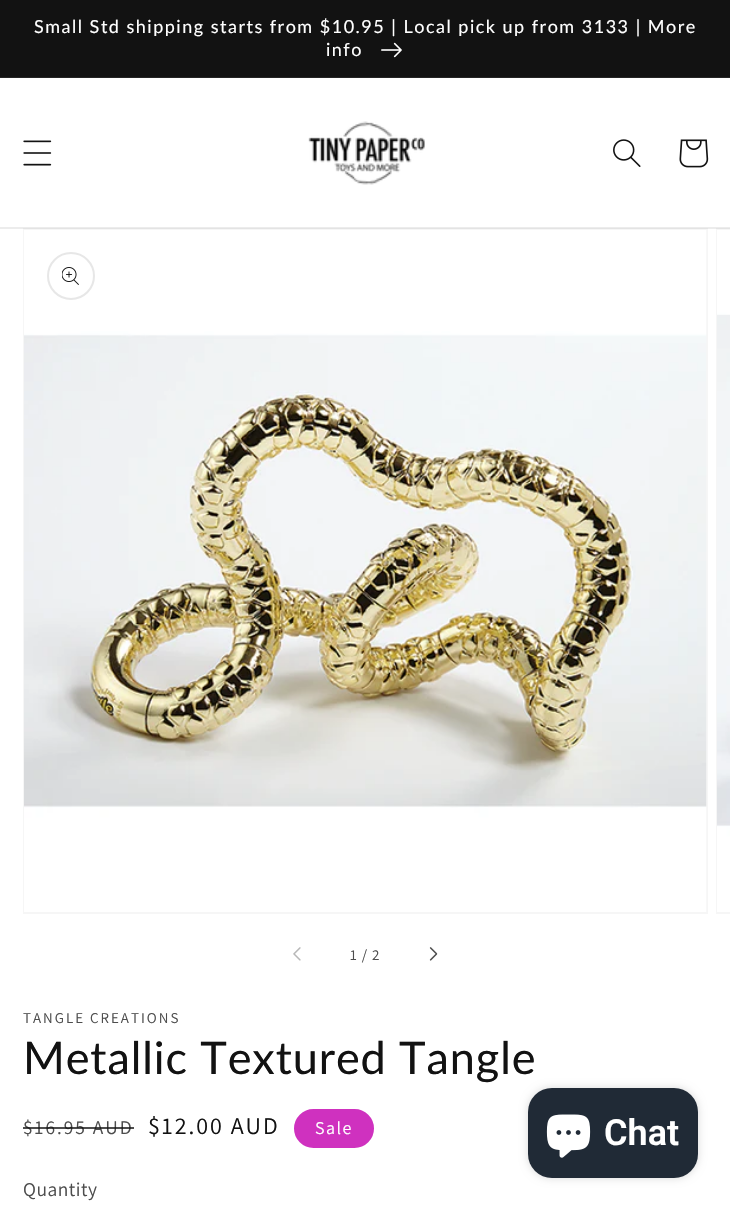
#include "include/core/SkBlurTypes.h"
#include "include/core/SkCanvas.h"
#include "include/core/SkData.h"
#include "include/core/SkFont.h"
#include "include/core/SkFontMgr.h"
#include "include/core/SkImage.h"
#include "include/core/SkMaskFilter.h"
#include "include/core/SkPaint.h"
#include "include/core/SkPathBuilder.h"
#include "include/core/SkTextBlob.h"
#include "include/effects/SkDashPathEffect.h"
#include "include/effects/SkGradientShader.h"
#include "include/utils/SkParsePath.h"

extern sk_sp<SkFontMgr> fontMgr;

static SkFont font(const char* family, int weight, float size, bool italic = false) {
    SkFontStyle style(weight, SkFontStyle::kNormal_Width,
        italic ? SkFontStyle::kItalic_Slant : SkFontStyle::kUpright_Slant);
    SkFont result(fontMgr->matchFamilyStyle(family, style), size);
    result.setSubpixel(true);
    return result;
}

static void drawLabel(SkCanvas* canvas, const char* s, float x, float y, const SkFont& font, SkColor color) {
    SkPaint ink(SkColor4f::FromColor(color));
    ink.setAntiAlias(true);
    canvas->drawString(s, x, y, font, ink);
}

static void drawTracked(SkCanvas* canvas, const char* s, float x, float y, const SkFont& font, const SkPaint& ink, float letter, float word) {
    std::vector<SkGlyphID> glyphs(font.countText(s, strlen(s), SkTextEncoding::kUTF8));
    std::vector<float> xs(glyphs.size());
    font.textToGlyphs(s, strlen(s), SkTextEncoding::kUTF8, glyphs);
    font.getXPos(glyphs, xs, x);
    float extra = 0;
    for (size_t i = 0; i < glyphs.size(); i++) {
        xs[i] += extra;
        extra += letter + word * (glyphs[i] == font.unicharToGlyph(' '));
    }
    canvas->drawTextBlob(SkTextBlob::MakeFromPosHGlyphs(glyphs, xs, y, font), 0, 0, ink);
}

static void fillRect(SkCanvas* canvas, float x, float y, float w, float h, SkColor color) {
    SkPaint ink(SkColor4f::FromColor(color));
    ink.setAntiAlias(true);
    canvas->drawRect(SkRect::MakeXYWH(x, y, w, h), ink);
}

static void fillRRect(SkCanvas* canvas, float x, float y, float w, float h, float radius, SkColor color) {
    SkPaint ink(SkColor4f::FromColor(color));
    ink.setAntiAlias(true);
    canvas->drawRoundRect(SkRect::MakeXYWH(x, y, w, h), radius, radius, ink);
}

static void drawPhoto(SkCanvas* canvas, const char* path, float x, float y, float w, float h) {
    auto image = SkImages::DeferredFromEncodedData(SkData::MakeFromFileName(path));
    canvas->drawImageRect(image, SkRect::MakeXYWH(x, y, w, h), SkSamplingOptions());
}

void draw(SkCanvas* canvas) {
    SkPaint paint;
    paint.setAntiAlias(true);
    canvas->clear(0xFFFFFFFF);
    fillRect(canvas, 0, 0, 730, 77, 0xFF121212);
    fillRect(canvas, 0, 77, 730, 1, 0xFF252525);
    SkFont font1 = font("Lato", 400, 18);
    paint.setColor(0xFFFFFFFF);
    drawTracked(canvas, "Small Std shipping starts from $10.95 | Local pick up from 3133 | More", 34, 33, font1, paint, 1.5f, 0);
    drawTracked(canvas, "info", 326, 56, font1, paint, 1.5f, 0);
    drawPhoto(canvas, "assets/img1.png", 381, 42, 21, 16);
    paint.setStroke(true);
    paint.setStrokeWidth(2);
    paint.setColor(0xFFF6F6F6);
    canvas->drawRect(SkRect::MakeXYWH(24, 229, 683, 684), paint);
    canvas->drawRect(SkRect::MakeXYWH(717, 229, 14, 684), paint);
    fillRect(canvas, 0, 227, 730, 2, 0x14121212);
    drawPhoto(canvas, "assets/img2.png", 23, 140, 29, 26);
    drawPhoto(canvas, "assets/img3.png", 308, 121, 117, 64);
    drawPhoto(canvas, "assets/img4.png", 613, 139, 28, 28);
    drawPhoto(canvas, "assets/img5.png", 679, 139, 30, 29);
    drawPhoto(canvas, "assets/img6.png", 24, 230, 683, 682);
    paint.setColor(0xFFE7E7E7);
    canvas->drawCircle(71, 276, 23, paint);
    drawPhoto(canvas, "assets/img7.png", 62, 267, 17, 18);
    drawPhoto(canvas, "assets/img8.png", 717, 230, 13, 682);
    drawPhoto(canvas, "assets/img9.png", 293, 947, 8, 14);
    SkFont font2 = font("Assistant", 400, 15);
    paint.setStroke(false);
    paint.setColor(0xFF4D4D4D);
    drawTracked(canvas, "1 / 2", 350, 960, font2, paint, 1, 0);
    drawPhoto(canvas, "assets/img10.png", 429, 947, 9, 14);
    drawTracked(canvas, "TANGLE CREATIONS", 23, 1023, font2, paint, 2, 0);
    SkFont font3 = font("Lato", 400, 45);
    paint.setColor(0xFF121212);
    drawTracked(canvas, "Metallic Textured Tangle", 23, 1074, font3, paint, 0.9f, 0);
    SkFont font4 = font("Assistant", 400, 19.5f);
    paint.setColor(0xFF4D4D4D);
    drawTracked(canvas, "$16.95 AUD", 23, 1134, font4, paint, 2, 0);
    fillRect(canvas, 23, 1127, 111, 2, 0xBF121212);
    SkFont font5 = font("Assistant", 400, 24);
    paint.setColor(0xFF121212);
    drawTracked(canvas, "$12.00 AUD", 148, 1134, font5, paint, 2, 0);
    paint.setColor(0xFFCF31BF);
    canvas->drawRoundRect(SkRect::MakeXYWH(295, 1110, 78, 37), 18.5f, 18.5f, paint);
    paint.setStroke(true);
    canvas->drawRoundRect(SkRect::MakeXYWH(295, 1110, 78, 37), 18.5f, 18.5f, paint);
    SkFont font6 = font("Assistant", 400, 18);
    paint.setStroke(false);
    paint.setColor(0xFFFFFFFF);
    drawTracked(canvas, "Sale", 315, 1134, font6, paint, 1.5f, 0);
    paint.setColor(0xFF4D4D4D);
    drawTracked(canvas, "Quantity", 23, 1196, font4, paint, 0.5f, 0);
    paint.setColor(0x26000000);
    paint.setMaskFilter(SkMaskFilter::MakeBlur(kNormal_SkBlurStyle, 4));
    canvas->drawRoundRect(SkRect::MakeXYWH(528, 1088, 170, 90), 24, 24, paint);
    paint.setMaskFilter(nullptr);
    fillRRect(canvas, 528, 1088, 170, 90, 24, 0xFF202A36);
    drawPhoto(canvas, "assets/img11.png", 546, 1114, 45, 44);
    SkFont font7 = font("Roboto", 600, 36);
    drawLabel(canvas, "Chat", 604, 1145, font7, 0xFFFFFFFF);
}
